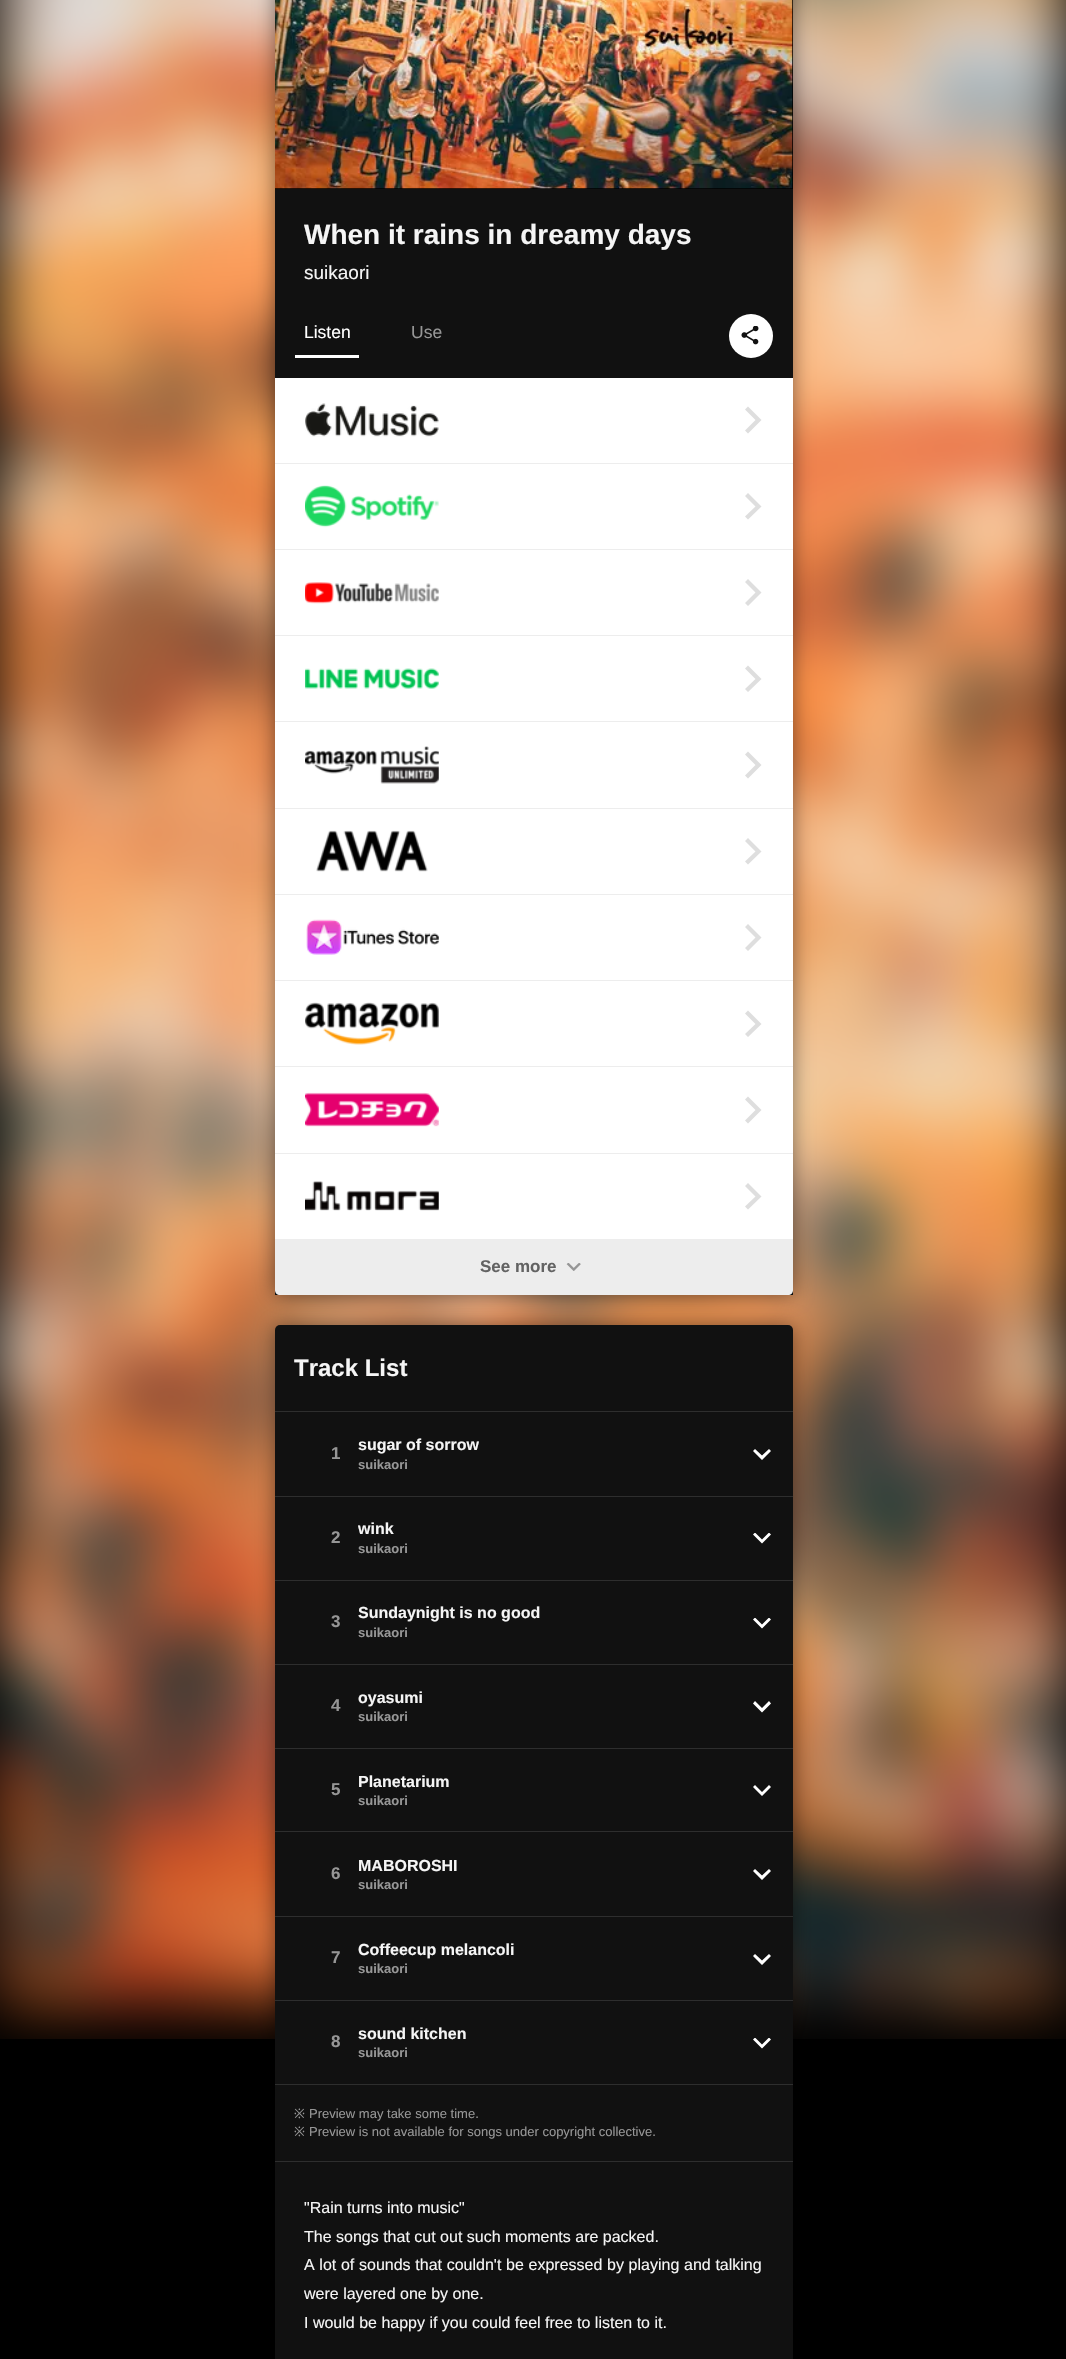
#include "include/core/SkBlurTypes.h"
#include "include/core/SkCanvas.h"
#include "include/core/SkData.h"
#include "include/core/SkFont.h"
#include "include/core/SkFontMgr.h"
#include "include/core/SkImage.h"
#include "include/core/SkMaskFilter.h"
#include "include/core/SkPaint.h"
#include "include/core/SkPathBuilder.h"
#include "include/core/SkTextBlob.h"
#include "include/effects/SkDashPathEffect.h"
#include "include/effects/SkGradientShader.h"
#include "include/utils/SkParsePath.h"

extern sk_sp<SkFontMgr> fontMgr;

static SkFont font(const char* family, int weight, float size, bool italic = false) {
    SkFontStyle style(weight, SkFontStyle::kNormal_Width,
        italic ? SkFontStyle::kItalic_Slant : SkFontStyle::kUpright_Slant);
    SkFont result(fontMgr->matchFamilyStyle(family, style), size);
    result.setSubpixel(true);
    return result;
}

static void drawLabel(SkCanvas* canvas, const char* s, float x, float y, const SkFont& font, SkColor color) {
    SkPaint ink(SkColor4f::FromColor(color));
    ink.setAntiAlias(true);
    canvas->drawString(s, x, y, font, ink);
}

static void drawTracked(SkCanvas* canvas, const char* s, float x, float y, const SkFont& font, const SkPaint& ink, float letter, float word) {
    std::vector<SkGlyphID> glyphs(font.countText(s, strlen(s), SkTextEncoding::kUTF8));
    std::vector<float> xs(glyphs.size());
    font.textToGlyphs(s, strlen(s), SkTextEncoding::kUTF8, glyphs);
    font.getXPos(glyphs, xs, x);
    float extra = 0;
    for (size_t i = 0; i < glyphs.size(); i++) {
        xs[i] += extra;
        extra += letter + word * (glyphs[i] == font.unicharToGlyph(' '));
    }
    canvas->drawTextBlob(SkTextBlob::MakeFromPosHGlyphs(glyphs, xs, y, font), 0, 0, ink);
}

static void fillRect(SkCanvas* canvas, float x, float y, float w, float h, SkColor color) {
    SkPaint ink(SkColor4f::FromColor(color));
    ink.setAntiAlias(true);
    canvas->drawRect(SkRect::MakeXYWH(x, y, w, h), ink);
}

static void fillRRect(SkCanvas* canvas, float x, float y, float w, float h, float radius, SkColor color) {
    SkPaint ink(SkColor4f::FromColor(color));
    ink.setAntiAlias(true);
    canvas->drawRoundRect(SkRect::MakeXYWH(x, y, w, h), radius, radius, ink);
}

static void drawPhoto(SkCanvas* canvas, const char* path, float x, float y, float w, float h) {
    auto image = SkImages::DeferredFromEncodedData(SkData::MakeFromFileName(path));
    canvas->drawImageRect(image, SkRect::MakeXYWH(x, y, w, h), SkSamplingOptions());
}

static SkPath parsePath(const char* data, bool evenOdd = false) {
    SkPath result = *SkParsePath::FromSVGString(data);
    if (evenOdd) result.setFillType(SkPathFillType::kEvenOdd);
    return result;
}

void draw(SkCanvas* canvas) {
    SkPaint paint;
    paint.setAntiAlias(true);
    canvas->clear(0xFF000000);
    drawPhoto(canvas, "assets/img1.png", 0, 0, 1066, 2039);
    paint.setColor(0x78000000);
    paint.setMaskFilter(SkMaskFilter::MakeBlur(kNormal_SkBlurStyle, 10));
    canvas->drawRoundRect(SkRect::MakeXYWH(275, -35, 518, 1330), 5, 5, paint);
    paint.setMaskFilter(nullptr);
    fillRect(canvas, 275, 0, 518, 189, 0xFF000000);
    drawPhoto(canvas, "assets/img2.png", 275, 0, 518, 189);
    fillRect(canvas, 275, 189, 518, 1106, 0xFF111111);
    SkFont font1 = font("Liberation Sans", 700, 28);
    drawLabel(canvas, "When it rains in dreamy days", 304, 244, font1, 0xFFF5F5F5);
    SkFont font2 = font("Liberation Sans", 400, 19);
    drawLabel(canvas, "suikaori", 304, 279, font2, 0xFFF5F5F5);
    SkFont font3 = font("Liberation Sans", 400, 17.5f);
    drawLabel(canvas, "Listen", 304, 338, font3, 0xFFFFFFFF);
    fillRect(canvas, 295, 355, 64, 3, 0xFFFFFFFF);
    drawLabel(canvas, "Use", 411, 338, font3, 0xFF969696);
    paint.setColor(0xFFFFFFFF);
    canvas->drawCircle(751, 336, 22, paint);
    drawPhoto(canvas, "assets/img3.png", 741, 326, 18, 19);
    fillRect(canvas, 275, 378, 518, 861, 0xFFFFFFFF);
    drawPhoto(canvas, "assets/img4.png", 305, 403, 134, 34);
    paint.setColor(0xFFDEDEDE);
    canvas->drawPath(parsePath("M745 430.5L755.5 420L745 409.5L748 406.5L761.5 420L748 433.5Z"), paint);
    fillRect(canvas, 275, 463, 518, 1, 0xFFEDEDED);
    drawPhoto(canvas, "assets/img5.png", 305, 485, 134, 43);
    canvas->drawPath(parsePath("M745 516.5L755.5 506.5L745 496L748 493L761.5 506.5L748 519.5Z"), paint);
    fillRect(canvas, 275, 549, 518, 1, 0xFFEDEDED);
    drawPhoto(canvas, "assets/img6.png", 305, 582, 134, 22);
    canvas->drawPath(parsePath("M745 603L755.5 592.5L745 582L748 579L761.5 592.5L748 606Z"), paint);
    fillRect(canvas, 275, 635, 518, 1, 0xFFEDEDED);
    drawPhoto(canvas, "assets/img7.png", 305, 668, 134, 21);
    canvas->drawPath(parsePath("M745 689L755.5 679L745 668.5L748 665.5L761.5 679L748 692Z"), paint);
    fillRect(canvas, 275, 721, 518, 1, 0xFFEDEDED);
    drawPhoto(canvas, "assets/img8.png", 305, 746, 134, 38);
    canvas->drawPath(parsePath("M745 775.5L755.5 765L745 754.5L748 751.5L761.5 765L748 778.5Z"), paint);
    fillRect(canvas, 275, 808, 518, 1, 0xFFEDEDED);
    drawPhoto(canvas, "assets/img9.png", 316, 830, 112, 42);
    canvas->drawPath(parsePath("M745 861.5L755.5 851.5L745 841L748 838L761.5 851.5L748 864.5Z"), paint);
    fillRect(canvas, 275, 894, 518, 1, 0xFFEDEDED);
    drawPhoto(canvas, "assets/img10.png", 306, 919, 133, 36);
    canvas->drawPath(parsePath("M745 948L755.5 937.5L745 927L748 924L761.5 937.5L748 951Z"), paint);
    fillRect(canvas, 275, 980, 518, 1, 0xFFEDEDED);
    drawPhoto(canvas, "assets/img11.png", 305, 1002, 134, 43);
    canvas->drawPath(parsePath("M745 1034L755.5 1024L745 1013.5L748 1010.5L761.5 1024L748 1037Z"), paint);
    fillRect(canvas, 275, 1066, 518, 1, 0xFFEDEDED);
    drawPhoto(canvas, "assets/img12.png", 305, 1092, 134, 35);
    canvas->drawPath(parsePath("M745 1120.5L755.5 1110L745 1099.5L748 1096.5L761.5 1110L748 1123.5Z"), paint);
    fillRect(canvas, 275, 1153, 518, 1, 0xFFEDEDED);
    drawPhoto(canvas, "assets/img13.png", 305, 1181, 134, 30);
    canvas->drawPath(parsePath("M745 1206.5L755.5 1196.5L745 1186L748 1183L761.5 1196.5L748 1209.5Z"), paint);
    paint.setColor(0x78000000);
    paint.setMaskFilter(SkMaskFilter::MakeBlur(kNormal_SkBlurStyle, 10));
    canvas->drawRoundRect(SkRect::MakeXYWH(275, 1325, 518, 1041), 5, 5, paint);
    paint.setMaskFilter(nullptr);
    paint.setColor(0xFFEDEDED);
    canvas->drawPath(parsePath("M275 1239H793V1290C793 1293 791 1295 788 1295H280C277 1295 275 1293 275 1290Z"), paint);
    SkFont font4 = font("Liberation Sans", 700, 17);
    drawLabel(canvas, "See more", 480, 1272, font4, 0xFF636363);
    drawPhoto(canvas, "assets/img14.png", 566, 1263, 15, 8);
    fillRRect(canvas, 275, 1325, 518, 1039, 5, 0xFF111111);
    fillRect(canvas, 275, 1411, 518, 1, 0xFF2E2E2E);
    SkFont font5 = font("Liberation Sans", 700, 24);
    drawLabel(canvas, "Track List", 294, 1376, font5, 0xFFF5F5F5);
    fillRect(canvas, 275, 2161, 518, 1, 0xFF2E2E2E);
    fillRect(canvas, 275, 1496, 518, 1, 0xFF2E2E2E);
    drawLabel(canvas, "1", 331, 1459, font4, 0xFF969696);
    SkFont font6 = font("Liberation Sans", 700, 16);
    drawLabel(canvas, "sugar of sorrow", 358, 1450, font6, 0xFFF5F5F5);
    SkFont font7 = font("Liberation Sans", 700, 13);
    drawLabel(canvas, "suikaori", 358, 1469, font7, 0xFF969696);
    paint.setColor(0xFFFFFFFF);
    canvas->drawPath(parsePath("M769 1449L762 1455.5L755 1449L753 1451L762 1460L771 1451Z"), paint);
    fillRect(canvas, 275, 1580, 518, 1, 0xFF2E2E2E);
    drawLabel(canvas, "2", 331, 1543, font4, 0xFF969696);
    drawLabel(canvas, "wink", 358, 1534, font6, 0xFFF5F5F5);
    drawLabel(canvas, "suikaori", 358, 1553, font7, 0xFF969696);
    canvas->save();
    canvas->clipRect(SkRect::MakeXYWH(753, 1533, 18, 11));
    canvas->drawPath(parsePath("M769 1532.5L762 1539.5L755 1532.5L753 1534.5L762 1543.5L771 1534.5Z"), paint);
    canvas->restore();
    fillRect(canvas, 275, 1664, 518, 1, 0xFF2E2E2E);
    drawLabel(canvas, "3", 331, 1627, font4, 0xFF969696);
    drawLabel(canvas, "Sundaynight is no good", 358, 1618, font6, 0xFFF5F5F5);
    drawLabel(canvas, "suikaori", 358, 1637, font7, 0xFF969696);
    canvas->save();
    canvas->clipRect(SkRect::MakeXYWH(753, 1618, 18, 11));
    canvas->drawPath(parsePath("M769 1617.5L762 1624.5L755 1617.5L753 1619.5L762 1628.5L771 1619.5Z"), paint);
    canvas->restore();
    fillRect(canvas, 275, 1748, 518, 1, 0xFF2E2E2E);
    drawLabel(canvas, "4", 331, 1711, font4, 0xFF969696);
    drawLabel(canvas, "oyasumi", 358, 1703, font6, 0xFFF5F5F5);
    drawLabel(canvas, "suikaori", 358, 1721, font7, 0xFF969696);
    canvas->drawPath(parsePath("M769 1701L762 1708L755 1701L753 1703.5L762 1712.5L771 1703.5Z"), paint);
    fillRect(canvas, 275, 1831, 518, 1, 0xFF2E2E2E);
    drawLabel(canvas, "5", 331, 1795, font4, 0xFF969696);
    drawLabel(canvas, "Planetarium", 358, 1787, font6, 0xFFF5F5F5);
    drawLabel(canvas, "suikaori", 358, 1805, font7, 0xFF969696);
    canvas->drawPath(parsePath("M769 1785L762 1792L755 1785L753 1787L762 1796L771 1787Z"), paint);
    fillRect(canvas, 275, 1916, 518, 1, 0xFF2E2E2E);
    drawLabel(canvas, "6", 331, 1879, font4, 0xFF969696);
    drawLabel(canvas, "MABOROSHI", 358, 1871, font6, 0xFFF5F5F5);
    drawLabel(canvas, "suikaori", 358, 1889, font7, 0xFF969696);
    canvas->drawPath(parsePath("M769 1869L762 1875.5L755 1869L753 1871L762 1880L771 1871Z"), paint);
    fillRect(canvas, 275, 2000, 518, 1, 0xFF2E2E2E);
    drawLabel(canvas, "7", 331, 1963, font4, 0xFF969696);
    drawLabel(canvas, "Coffeecup melancoli", 358, 1955, font6, 0xFFF5F5F5);
    drawLabel(canvas, "suikaori", 358, 1973, font7, 0xFF969696);
    canvas->drawPath(parsePath("M769 1954L762 1960.5L755 1954L753 1956L762 1965L771 1956Z"), paint);
    fillRect(canvas, 275, 2084, 518, 1, 0xFF2E2E2E);
    drawLabel(canvas, "8", 331, 2047, font4, 0xFF969696);
    drawLabel(canvas, "sound kitchen", 358, 2039, font6, 0xFFF5F5F5);
    drawLabel(canvas, "suikaori", 358, 2057, font7, 0xFF969696);
    canvas->save();
    canvas->clipRect(SkRect::MakeXYWH(753, 2038, 18, 11));
    canvas->drawPath(parsePath("M769 2037.5L762 2044.5L755 2037.5L753 2039.5L762 2048.5L771 2039.5Z"), paint);
    canvas->restore();
    SkFont font8 = font("Noto Sans", 400, 13);
    drawLabel(canvas, "※", 294, 2118, font8, 0xFF969696);
    SkFont font9 = font("Liberation Sans", 400, 13);
    drawLabel(canvas, "Preview may take some time.", 309, 2118, font9, 0xFF969696);
    drawLabel(canvas, "※", 294, 2136, font8, 0xFF969696);
    drawLabel(canvas, "Preview is not available for songs under copyright collective.", 309, 2136, font9, 0xFF969696);
    SkFont font10 = font("Liberation Sans", 400, 16);
    drawLabel(canvas, "\"Rain turns into music\"", 304, 2213, font10, 0xFFF5F5F5);
    drawLabel(canvas, "The songs that cut out such moments are packed.", 304, 2242, font10, 0xFFF5F5F5);
    paint.setColor(0xFFF5F5F5);
    drawTracked(canvas, "A lot of sounds that couldn't be expressed by playing and talking", 304, 2270, font10, paint, 0, 0.25f);
    drawLabel(canvas, "were layered one by one.", 304, 2299, font10, 0xFFF5F5F5);
    drawLabel(canvas, "I would be happy if you could feel free to listen to it.", 304, 2328, font10, 0xFFF5F5F5);
}
